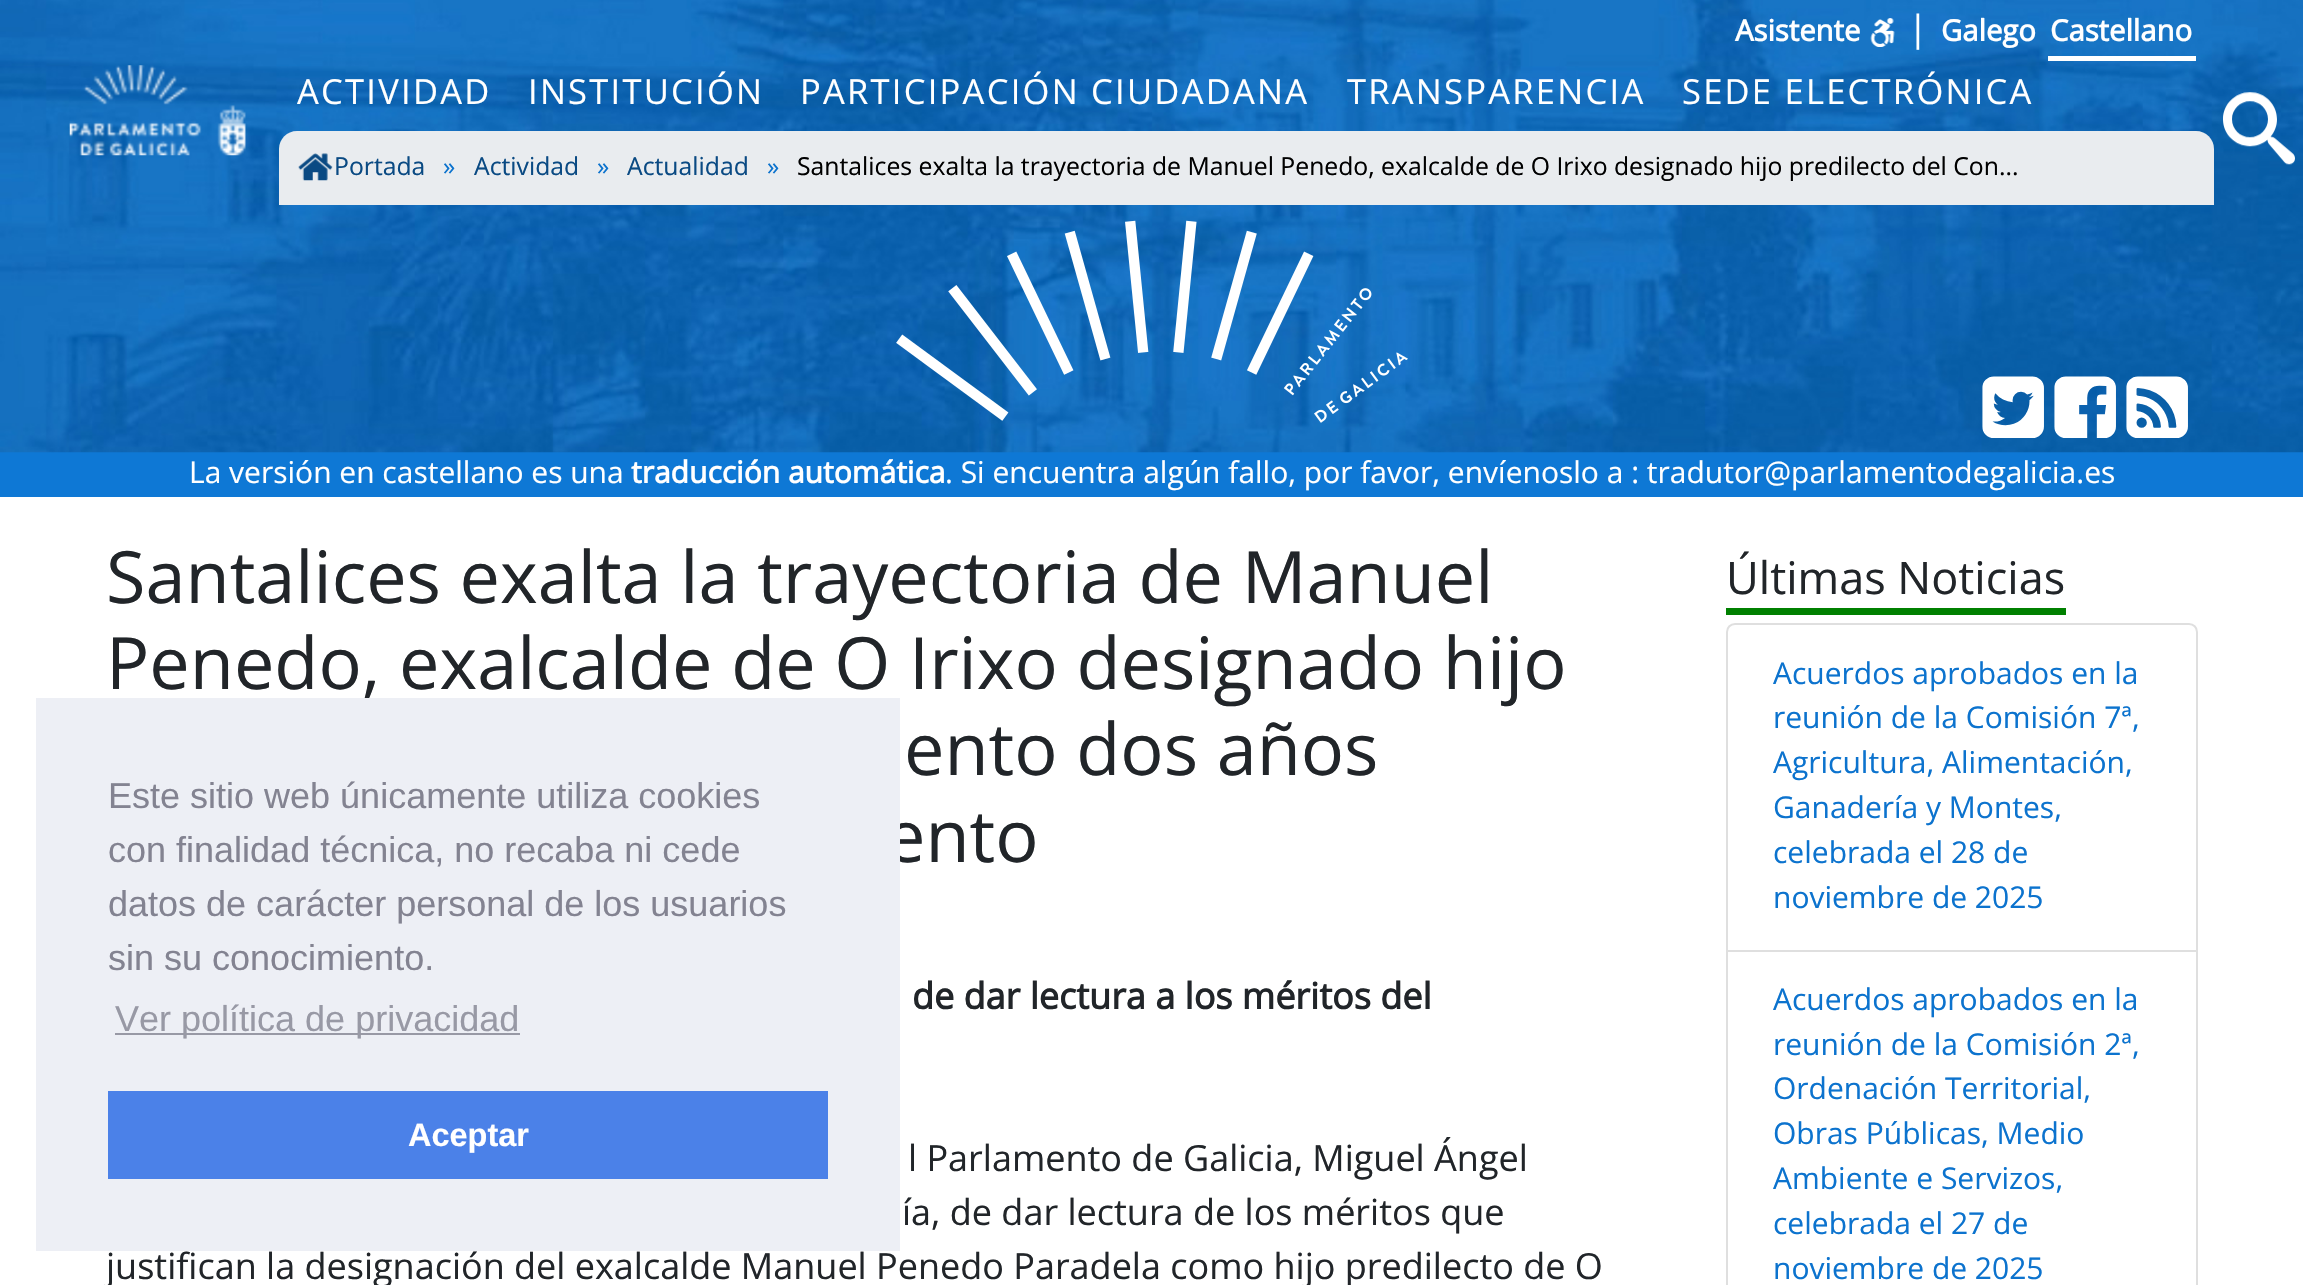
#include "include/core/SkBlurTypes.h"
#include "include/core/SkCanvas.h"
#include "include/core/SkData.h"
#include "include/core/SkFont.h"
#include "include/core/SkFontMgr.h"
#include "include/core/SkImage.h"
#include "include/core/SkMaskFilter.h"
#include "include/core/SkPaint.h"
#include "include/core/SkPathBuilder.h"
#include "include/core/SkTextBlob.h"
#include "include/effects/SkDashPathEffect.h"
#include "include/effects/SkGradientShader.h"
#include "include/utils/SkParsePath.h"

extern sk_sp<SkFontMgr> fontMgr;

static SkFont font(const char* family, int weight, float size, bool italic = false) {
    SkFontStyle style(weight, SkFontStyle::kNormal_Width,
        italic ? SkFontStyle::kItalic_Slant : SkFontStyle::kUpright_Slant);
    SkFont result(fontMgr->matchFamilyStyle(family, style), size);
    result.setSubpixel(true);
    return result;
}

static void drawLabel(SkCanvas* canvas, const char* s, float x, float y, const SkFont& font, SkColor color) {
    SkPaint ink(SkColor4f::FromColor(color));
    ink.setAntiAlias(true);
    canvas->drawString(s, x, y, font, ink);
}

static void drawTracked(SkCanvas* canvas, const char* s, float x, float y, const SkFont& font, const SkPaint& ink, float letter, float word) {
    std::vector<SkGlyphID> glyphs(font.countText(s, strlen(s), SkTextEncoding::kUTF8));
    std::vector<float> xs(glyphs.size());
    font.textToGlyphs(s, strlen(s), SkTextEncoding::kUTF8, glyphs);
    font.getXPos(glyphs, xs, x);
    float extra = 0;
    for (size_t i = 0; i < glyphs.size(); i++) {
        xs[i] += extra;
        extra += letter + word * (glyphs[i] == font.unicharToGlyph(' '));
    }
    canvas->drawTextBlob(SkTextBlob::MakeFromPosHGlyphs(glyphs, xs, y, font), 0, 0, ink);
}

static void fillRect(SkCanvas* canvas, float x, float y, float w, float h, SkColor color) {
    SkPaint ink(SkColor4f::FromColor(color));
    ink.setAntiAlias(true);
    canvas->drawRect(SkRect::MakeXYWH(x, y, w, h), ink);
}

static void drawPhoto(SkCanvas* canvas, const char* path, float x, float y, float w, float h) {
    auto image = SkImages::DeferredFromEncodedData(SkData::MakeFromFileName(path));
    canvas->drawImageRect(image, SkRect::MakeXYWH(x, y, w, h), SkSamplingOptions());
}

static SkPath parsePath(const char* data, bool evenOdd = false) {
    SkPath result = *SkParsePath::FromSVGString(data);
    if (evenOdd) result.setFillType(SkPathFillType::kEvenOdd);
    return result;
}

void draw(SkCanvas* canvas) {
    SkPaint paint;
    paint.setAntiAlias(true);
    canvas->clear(0xFFFFFFFF);
    fillRect(canvas, 0, 452, 2303, 45, 0xFF0E78D5);
    drawPhoto(canvas, "assets/img1.png", 0, 0, 2303, 453);
    drawPhoto(canvas, "assets/img2.png", 896, 220, 512, 203);
    drawPhoto(canvas, "assets/img3.png", 1982, 376, 62, 62);
    drawPhoto(canvas, "assets/img4.png", 2054, 376, 62, 62);
    drawPhoto(canvas, "assets/img5.png", 2126, 376, 62, 62);
    SkFont font1 = font("Open Sans", 700, 29.25f);
    drawLabel(canvas, "Asistente", 1735, 41, font1, 0xFFFFFFFF);
    drawPhoto(canvas, "assets/img6.png", 1870, 18, 25, 29);
    SkFont font2 = font("Open Sans", 400, 36);
    drawLabel(canvas, "|", 1908, 41, font2, 0xFFFFFFFF);
    drawLabel(canvas, "Galego", 1941, 41, font1, 0xFFFFFFFF);
    fillRect(canvas, 2048, 56, 148, 5, 0xFFFFFFFF);
    drawLabel(canvas, "Castellano", 2050, 41, font1, 0xFFFFFFFF);
    drawPhoto(canvas, "assets/img7.png", 69, 65, 177, 91);
    SkFont font3 = font("Open Sans", 400, 34.5f);
    paint.setColor(0xFFFFFFFF);
    drawTracked(canvas, "ACTIVIDAD", 297, 104, font3, paint, 2.25f, 0);
    drawTracked(canvas, "INSTITUCIÓN", 528, 104, font3, paint, 2.25f, 0);
    drawTracked(canvas, "PARTICIPACIÓN CIUDADANA", 800, 104, font3, paint, 2.25f, 0);
    drawTracked(canvas, "TRANSPARENCIA", 1347, 104, font3, paint, 2.25f, 0);
    drawTracked(canvas, "SEDE ELECTRÓNICA", 1682, 104, font3, paint, 2.25f, 0);
    paint.setColor(0xFFE9ECEF);
    canvas->drawPath(parsePath("M297 131H2196C2206 131 2214 139 2214 149V205H279V149C279 139 287 131 297 131Z"), paint);
    drawPhoto(canvas, "assets/img8.png", 298, 153, 35, 28);
    SkFont font4 = font("Open Sans", 400, 24.75f);
    drawLabel(canvas, "Portada", 334, 175, font4, 0xFF0A4A83);
    drawLabel(canvas, "»", 443, 175, font4, 0xFF0C73CE);
    drawLabel(canvas, "Actividad", 474, 175, font4, 0xFF0A4A83);
    drawLabel(canvas, "»", 597, 175, font4, 0xFF0C73CE);
    drawLabel(canvas, "Actualidad", 627, 175, font4, 0xFF0A4A83);
    drawLabel(canvas, "»", 767, 175, font4, 0xFF0C73CE);
    drawLabel(canvas, "Santalices exalta la trayectoria de Manuel Penedo, exalcalde de O Irixo designado hijo predilecto del Con...", 797, 175, font4, 0xFF000000);
    drawPhoto(canvas, "assets/img9.png", 2223, 92, 72, 73);
    SkFont font5 = font("Open Sans", 400, 30);
    drawLabel(canvas, "La versión en castellano es una", 189, 483, font5, 0xFFFFFFFF);
    SkFont font6 = font("Open Sans", 700, 30);
    drawLabel(canvas, "traducción automática", 631, 483, font6, 0xFFFFFFFF);
    drawLabel(canvas, ". Si encuentra algún fallo, por favor, envíenoslo a : tradutor@parlamentodegalicia.es", 945, 483, font5, 0xFFFFFFFF);
    SkFont font7 = font("Open Sans", 400, 72);
    drawLabel(canvas, "Santalices exalta la trayectoria de Manuel", 106, 603, font7, 0xFF212529);
    drawLabel(canvas, "Penedo, exalcalde de O Irixo designado hijo", 106, 689, font7, 0xFF212529);
    drawLabel(canvas, "ento dos años", 904, 775, font7, 0xFF212529);
    drawLabel(canvas, "ento", 885, 862, font7, 0xFF212529);
    SkFont font8 = font("Open Sans", 700, 36);
    drawLabel(canvas, "de dar lectura a los méritos del", 912, 1009, font8, 0xFF212529);
    drawLabel(canvas, "l Parlamento de Galicia, Miguel Ángel", 908, 1171, font2, 0xFF212529);
    drawLabel(canvas, "ía, de dar lectura de los méritos que", 902, 1225, font2, 0xFF212529);
    drawLabel(canvas, "justifican la designación del exalcalde Manuel Penedo Paradela como hijo predilecto de O", 106, 1279, font2, 0xFF212529);
    SkFont font9 = font("Open Sans", 400, 45);
    drawLabel(canvas, "Últimas Noticias", 1726, 594, font9, 0xFF212529);
    fillRect(canvas, 1726, 608, 340, 7, 0xFF008000);
    paint.setStroke(true);
    paint.setStrokeWidth(2);
    paint.setColor(0xFFDFDFDF);
    canvas->drawPath(parsePath("M1735 624H2189C2193.5 624 2197 627.5 2197 632V951H1727V632C1727 627.5 1730.5 624 1735 624Z"), paint);
    drawLabel(canvas, "Acuerdos aprobados en la", 1773, 684, font5, 0xFF0C73CE);
    drawLabel(canvas, "reunión de la Comisión 7ª,", 1773, 728, font5, 0xFF0C73CE);
    drawLabel(canvas, "Agricultura, Alimentación,", 1773, 773, font5, 0xFF0C73CE);
    drawLabel(canvas, "Ganadería y Montes,", 1773, 818, font5, 0xFF0C73CE);
    drawLabel(canvas, "celebrada el 28 de", 1773, 863, font5, 0xFF0C73CE);
    drawLabel(canvas, "noviembre de 2025", 1773, 908, font5, 0xFF0C73CE);
    paint.setStroke(false);
    canvas->drawPath(parsePath("M2198 952V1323L2196 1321V952Z"), paint);
    canvas->drawPath(parsePath("M1726 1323V952H1728V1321Z"), paint);
    drawLabel(canvas, "Acuerdos aprobados en la", 1773, 1010, font5, 0xFF0C73CE);
    drawLabel(canvas, "reunión de la Comisión 2ª,", 1773, 1055, font5, 0xFF0C73CE);
    drawLabel(canvas, "Ordenación Territorial,", 1773, 1099, font5, 0xFF0C73CE);
    drawLabel(canvas, "Obras Públicas, Medio", 1773, 1144, font5, 0xFF0C73CE);
    drawLabel(canvas, "Ambiente e Servizos,", 1773, 1189, font5, 0xFF0C73CE);
    drawLabel(canvas, "celebrada el 27 de", 1773, 1234, font5, 0xFF0C73CE);
    drawLabel(canvas, "noviembre de 2025", 1773, 1279, font5, 0xFF0C73CE);
    fillRect(canvas, 36, 698, 864, 553, 0xFFEDEFF5);
    SkFont font10 = font("Liberation Sans", 400, 36);
    drawLabel(canvas, "Este sitio web únicamente utiliza cookies", 108, 808, font10, 0xFF838391);
    drawLabel(canvas, "con finalidad técnica, no recaba ni cede", 108, 862, font10, 0xFF838391);
    drawLabel(canvas, "datos de carácter personal de los usuarios", 108, 916, font10, 0xFF838391);
    drawLabel(canvas, "sin su conocimiento.", 108, 970, font10, 0xFF838391);
    fillRect(canvas, 115, 1033, 405, 2, 0xFF9899A5);
    drawLabel(canvas, "Ver política de privacidad", 115, 1031, font10, 0xFF9899A5);
    fillRect(canvas, 108, 1091, 720, 88, 0xFF4B81E8);
    SkFont font11 = font("Liberation Sans", 700, 32.5f);
    drawLabel(canvas, "Aceptar", 408, 1146, font11, 0xFFFFFFFF);
}
